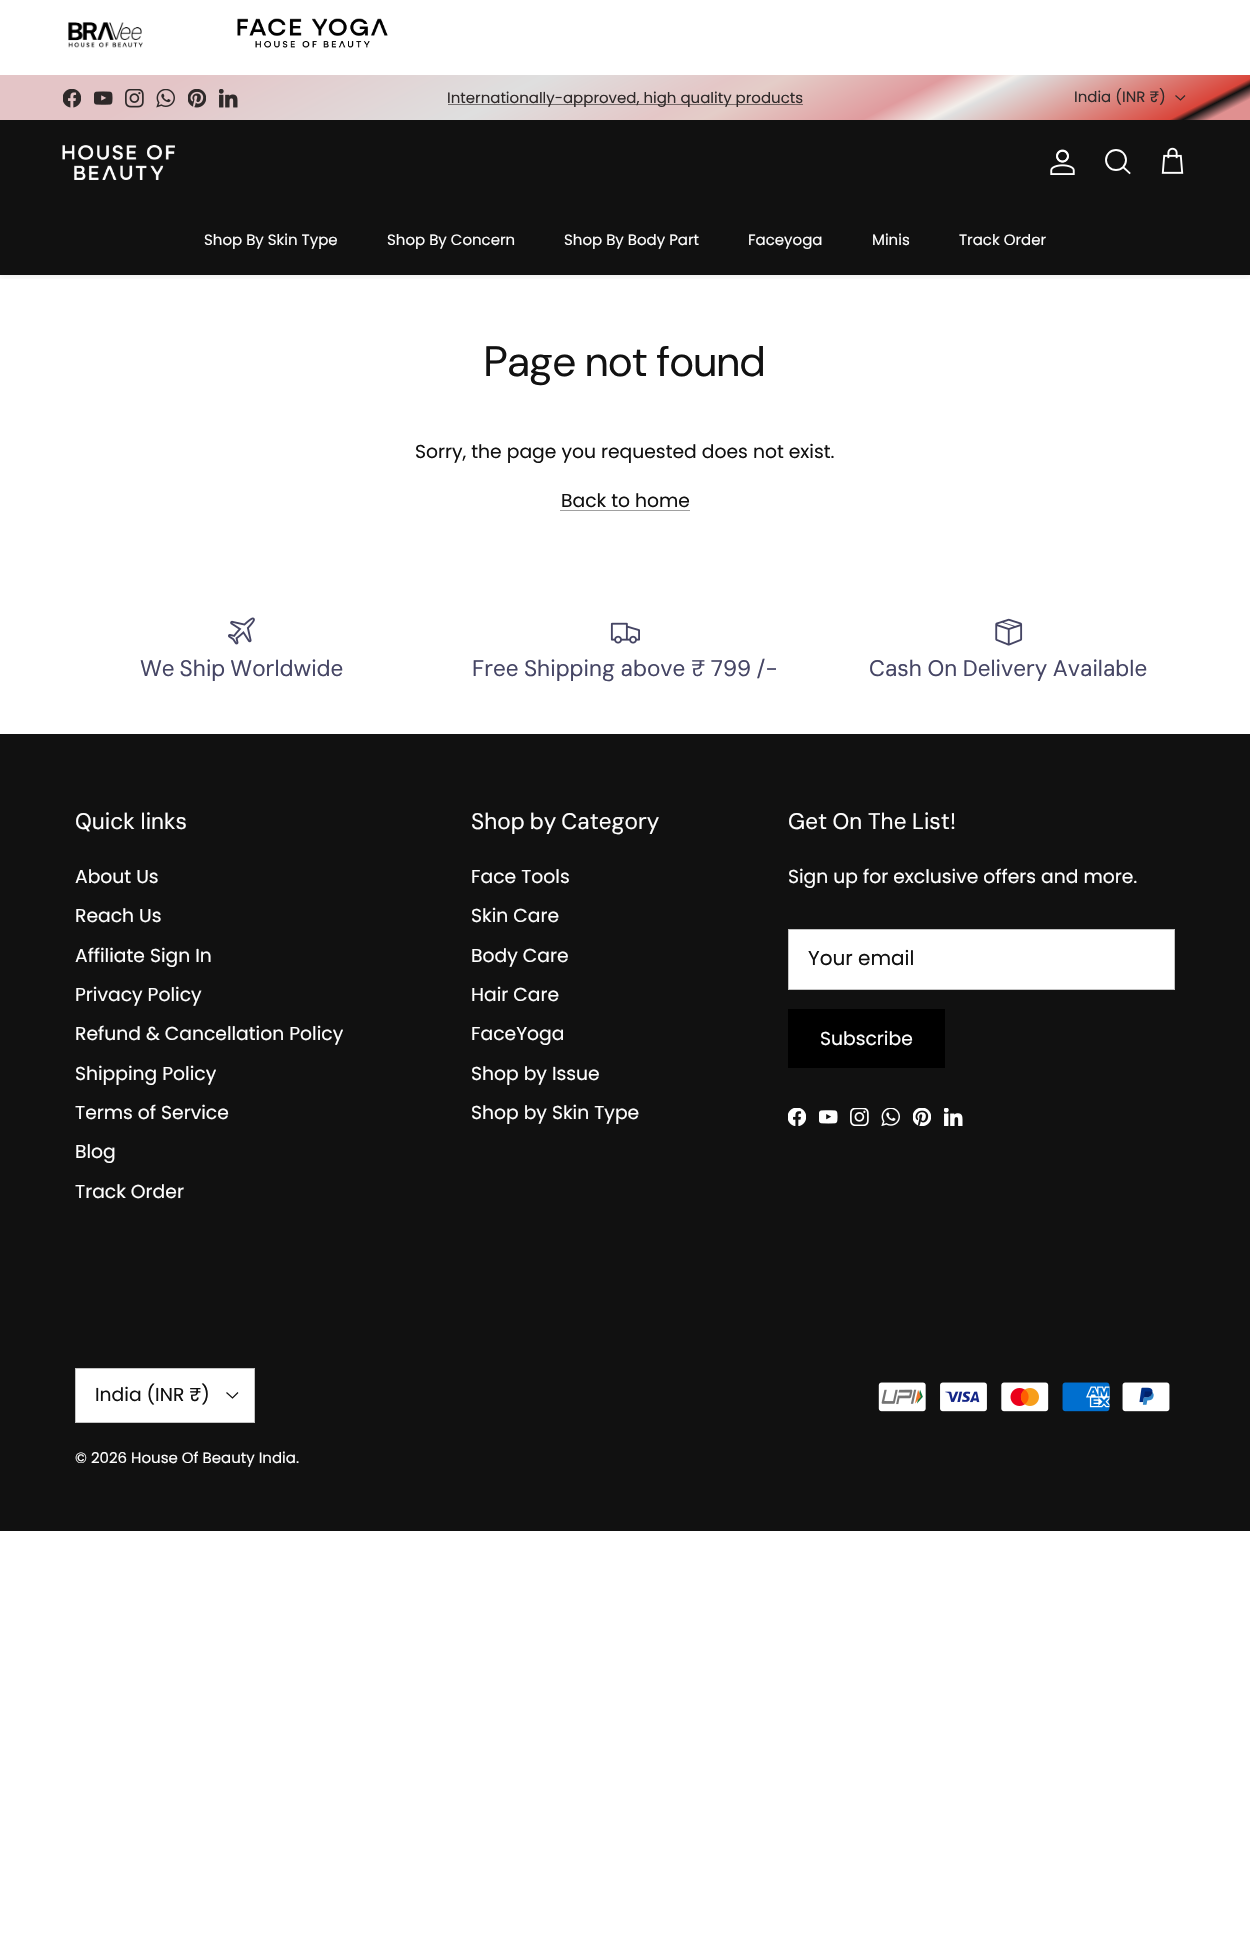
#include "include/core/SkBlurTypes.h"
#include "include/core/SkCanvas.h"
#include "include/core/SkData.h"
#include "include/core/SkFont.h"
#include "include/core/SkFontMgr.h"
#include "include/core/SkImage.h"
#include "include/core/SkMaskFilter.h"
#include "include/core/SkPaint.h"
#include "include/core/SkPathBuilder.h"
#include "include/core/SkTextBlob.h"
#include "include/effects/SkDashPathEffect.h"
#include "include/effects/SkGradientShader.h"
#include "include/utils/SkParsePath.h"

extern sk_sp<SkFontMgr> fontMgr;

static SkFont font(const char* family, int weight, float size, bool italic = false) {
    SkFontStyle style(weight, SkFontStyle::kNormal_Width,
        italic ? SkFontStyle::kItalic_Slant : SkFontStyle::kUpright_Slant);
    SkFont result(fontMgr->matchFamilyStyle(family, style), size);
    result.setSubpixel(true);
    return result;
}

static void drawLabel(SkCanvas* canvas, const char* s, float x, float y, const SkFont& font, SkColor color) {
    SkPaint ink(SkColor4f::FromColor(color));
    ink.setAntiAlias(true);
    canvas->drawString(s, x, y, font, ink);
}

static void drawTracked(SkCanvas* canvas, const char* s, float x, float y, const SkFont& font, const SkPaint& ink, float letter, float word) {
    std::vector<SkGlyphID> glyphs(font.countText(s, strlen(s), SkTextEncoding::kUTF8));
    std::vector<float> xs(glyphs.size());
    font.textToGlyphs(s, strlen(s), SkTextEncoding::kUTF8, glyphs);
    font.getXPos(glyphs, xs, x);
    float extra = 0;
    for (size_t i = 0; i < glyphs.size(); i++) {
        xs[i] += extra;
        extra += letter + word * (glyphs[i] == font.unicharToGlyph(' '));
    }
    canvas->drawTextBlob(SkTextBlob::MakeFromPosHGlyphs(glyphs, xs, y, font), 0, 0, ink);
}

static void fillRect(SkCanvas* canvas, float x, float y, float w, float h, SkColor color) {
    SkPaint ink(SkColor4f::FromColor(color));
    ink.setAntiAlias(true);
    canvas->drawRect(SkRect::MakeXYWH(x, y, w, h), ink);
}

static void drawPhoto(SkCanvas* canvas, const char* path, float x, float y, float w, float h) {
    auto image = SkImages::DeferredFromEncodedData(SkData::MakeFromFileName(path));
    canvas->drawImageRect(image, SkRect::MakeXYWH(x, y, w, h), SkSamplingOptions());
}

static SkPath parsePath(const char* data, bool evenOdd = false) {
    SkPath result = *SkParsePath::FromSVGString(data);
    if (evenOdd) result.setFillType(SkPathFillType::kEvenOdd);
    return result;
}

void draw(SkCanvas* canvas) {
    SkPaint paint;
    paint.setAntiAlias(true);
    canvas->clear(0xFFFFFFFF);
    canvas->save();
    canvas->clipRect(SkRect::MakeXYWH(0, 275, 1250, 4));
    paint.setColor(0x0D000000);
    paint.setMaskFilter(SkMaskFilter::MakeBlur(kNormal_SkBlurStyle, 3));
    canvas->drawRect(SkRect::MakeXYWH(0, 3, 1250, 275), paint);
    paint.setMaskFilter(nullptr);
    canvas->restore();
    drawPhoto(canvas, "assets/img1.png", 68, 22, 75, 26);
    drawPhoto(canvas, "assets/img2.png", 237, 18, 151, 30);
    {
        const SkColor colors[] = {0xFFE4C5C7, 0xFFDFDFDF, 0xFFE4C7C7, 0xFFE4CDC8, 0xFFE09B9E, 0xFFF2EEEA, 0xFFDFDFDF, 0xFFDA453A, 0xFF111111, 0xFFE09090};
        const float stops[] = {0.14f, 0.41f, 0.55f, 0.59f, 0.71f, 0.76f, 0.77f, 0.94f, 0.95f, 0.97f};
        const SkPoint ends[] = {{487, -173}, {763, 368}};
        paint.setShader(SkGradientShader::MakeLinear(ends, colors, stops, 10, SkTileMode::kClamp));
        paint.setAlpha(255);
    }
    canvas->drawRect(SkRect::MakeXYWH(0, 75, 1250, 45), paint);
    {
        const SkColor colors[] = {0xFF776768, 0xFF757272, 0xFF776868, 0xFF776B69, 0xFF755758, 0xFF7C7876, 0xFF757272, 0xFF733430, 0xFF221F1F, 0xFF755252};
        const float stops[] = {0.14f, 0.41f, 0.55f, 0.59f, 0.71f, 0.76f, 0.77f, 0.94f, 0.95f, 0.97f};
        const SkPoint ends[] = {{487, -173}, {763, 368}};
        paint.setShader(SkGradientShader::MakeLinear(ends, colors, stops, 10, SkTileMode::kClamp));
        paint.setAlpha(255);
    }
    canvas->drawRect(SkRect::MakeXYWH(448, 104, 355, 1), paint);
    drawPhoto(canvas, "assets/img3.png", 63, 89, 18, 19);
    drawPhoto(canvas, "assets/img4.png", 94, 91, 19, 14);
    drawPhoto(canvas, "assets/img5.png", 125, 89, 19, 19);
    drawPhoto(canvas, "assets/img6.png", 156, 89, 19, 19);
    drawPhoto(canvas, "assets/img7.png", 188, 89, 18, 19);
    drawPhoto(canvas, "assets/img8.png", 219, 89, 19, 19);
    SkFont font1 = font("Poppins", 400, 15);
    drawLabel(canvas, "Internationally-approved, high quality products", 447, 103, font1, 0xFF2E2929);
    drawLabel(canvas, "India (INR ₹)", 1074, 102, font1, 0xFF2E2929);
    paint.setStroke(true);
    paint.setStrokeWidth(1.2f);
    paint.setShader(nullptr);
    paint.setColor(0xFF2E2929);
    canvas->drawPath(parsePath("M1185 95.5L1180.5 100L1175.5 95.5"), paint);
    fillRect(canvas, 0, 120, 1250, 155, 0xFF111111);
    drawPhoto(canvas, "assets/img9.png", 62, 145, 113, 35);
    drawPhoto(canvas, "assets/img10.png", 1050, 149, 25, 26);
    paint.setStrokeWidth(1.9f);
    paint.setColor(0xFFFFFFFF);
    canvas->drawCircle(1116, 160, 10, paint);
    paint.setStrokeCap(SkPaint::kSquare_Cap);
    canvas->drawPath(parsePath("M1123.5 167.5L1129.5 173"), paint);
    drawPhoto(canvas, "assets/img11.png", 1161, 147, 23, 27);
    drawLabel(canvas, "Shop By Skin Type", 204, 245, font1, 0xFFFFFFFF);
    drawLabel(canvas, "Shop By Concern", 387, 245, font1, 0xFFFFFFFF);
    drawLabel(canvas, "Shop By Body Part", 564, 245, font1, 0xFFFFFFFF);
    drawLabel(canvas, "Faceyoga", 748, 245, font1, 0xFFFFFFFF);
    drawLabel(canvas, "Minis", 872, 245, font1, 0xFFFFFFFF);
    drawLabel(canvas, "Track Order", 959, 245, font1, 0xFFFFFFFF);
    SkFont font2 = font("DM Sans", 400, 42.5f);
    drawLabel(canvas, "Page not found", 484, 376, font2, 0xFF111111);
    SkFont font3 = font("Poppins", 400, 18.75f);
    drawLabel(canvas, "Sorry, the page you requested does not exist.", 415, 458, font3, 0xFF111111);
    drawLabel(canvas, "Back to home", 561, 507, font3, 0xFF111111);
    fillRect(canvas, 560, 510, 130, 1, 0xFFA0A0A0);
    drawPhoto(canvas, "assets/img12.png", 228, 617, 27, 28);
    SkFont font4 = font("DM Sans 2", 400, 22.5f);
    paint.setStroke(false);
    paint.setColor(0xFF454564);
    drawTracked(canvas, "We Ship Worldwide", 140, 676, font4, paint, 0, -1);
    drawPhoto(canvas, "assets/img13.png", 610, 622, 30, 22);
    drawTracked(canvas, "Free Shipping above ₹ 799 /-", 472, 676, font4, paint, 0, -0.5f);
    drawPhoto(canvas, "assets/img14.png", 995, 618, 28, 28);
    drawTracked(canvas, "Cash On Delivery Available", 869, 676, font4, paint, 0, -0.5f);
    fillRect(canvas, 0, 734, 1250, 797, 0xFF111111);
    drawLabel(canvas, "Quick links", 75, 829, font4, 0xFFFFFFFF);
    drawLabel(canvas, "About Us", 75, 883, font3, 0xFFFFFFFF);
    drawLabel(canvas, "Reach Us", 75, 922, font3, 0xFFFFFFFF);
    drawLabel(canvas, "Affiliate Sign In", 75, 962, font3, 0xFFFFFFFF);
    drawLabel(canvas, "Privacy Policy", 75, 1001, font3, 0xFFFFFFFF);
    drawLabel(canvas, "Refund & Cancellation Policy", 75, 1040, font3, 0xFFFFFFFF);
    drawLabel(canvas, "Shipping Policy", 75, 1080, font3, 0xFFFFFFFF);
    drawLabel(canvas, "Terms of Service", 75, 1119, font3, 0xFFFFFFFF);
    drawLabel(canvas, "Blog", 75, 1158, font3, 0xFFFFFFFF);
    drawLabel(canvas, "Track Order", 75, 1198, font3, 0xFFFFFFFF);
    paint.setColor(0xFFFFFFFF);
    drawTracked(canvas, "Shop by Category", 471, 829, font4, paint, 0, -1);
    drawLabel(canvas, "Face Tools", 471, 883, font3, 0xFFFFFFFF);
    drawLabel(canvas, "Skin Care", 471, 922, font3, 0xFFFFFFFF);
    drawLabel(canvas, "Body Care", 471, 962, font3, 0xFFFFFFFF);
    drawLabel(canvas, "Hair Care", 471, 1001, font3, 0xFFFFFFFF);
    drawLabel(canvas, "FaceYoga", 471, 1040, font3, 0xFFFFFFFF);
    drawLabel(canvas, "Shop by Issue", 471, 1080, font3, 0xFFFFFFFF);
    drawLabel(canvas, "Shop by Skin Type", 471, 1119, font3, 0xFFFFFFFF);
    drawTracked(canvas, "Get On The List!", 788, 829, font4, paint, 0, -0.5f);
    drawLabel(canvas, "Sign up for exclusive offers and more.", 788, 883, font3, 0xFFFFFFFF);
    canvas->drawRect(SkRect::MakeXYWH(788.5f, 929.5f, 386, 60), paint);
    paint.setStroke(true);
    paint.setStrokeWidth(1);
    paint.setStrokeCap(SkPaint::kButt_Cap);
    paint.setColor(0xFFC4C4C4);
    canvas->drawRect(SkRect::MakeXYWH(788.5f, 929.5f, 386, 60), paint);
    SkFont font5 = font("Poppins", 400, 20);
    drawLabel(canvas, "Your email", 808, 965, font5, 0xFF111111);
    fillRect(canvas, 788, 1009, 157, 59, 0xFF000000);
    drawLabel(canvas, "Subscribe", 820, 1045, font3, 0xFFFFFFFF);
    drawPhoto(canvas, "assets/img15.png", 788, 1108, 18, 18);
    drawPhoto(canvas, "assets/img16.png", 819, 1110, 19, 14);
    drawPhoto(canvas, "assets/img17.png", 850, 1108, 19, 18);
    drawPhoto(canvas, "assets/img18.png", 881, 1108, 19, 18);
    drawPhoto(canvas, "assets/img19.png", 913, 1108, 18, 18);
    drawPhoto(canvas, "assets/img20.png", 944, 1108, 19, 18);
    paint.setStroke(false);
    paint.setColor(0xFFFFFFFF);
    canvas->drawRect(SkRect::MakeXYWH(75.5f, 1368.5f, 179, 54), paint);
    paint.setStroke(true);
    paint.setColor(0xFFC4C4C4);
    canvas->drawRect(SkRect::MakeXYWH(75.5f, 1368.5f, 179, 54), paint);
    drawLabel(canvas, "India (INR ₹)", 95, 1401, font3, 0xFF111111);
    paint.setStrokeWidth(1.2f);
    paint.setColor(0xFF111111);
    canvas->drawPath(parsePath("M238 1392.5L232.5 1398L226.5 1392.5"), paint);
    drawLabel(canvas, "© 2026 House Of Beauty India.", 75, 1463, font1, 0xFFFFFFFF);
    drawPhoto(canvas, "assets/img21.png", 878, 1382, 48, 30);
    drawPhoto(canvas, "assets/img22.png", 940, 1382, 47, 30);
    drawPhoto(canvas, "assets/img23.png", 1001, 1382, 48, 30);
    drawPhoto(canvas, "assets/img24.png", 1062, 1382, 48, 30);
    drawPhoto(canvas, "assets/img25.png", 1122, 1382, 48, 30);
}
